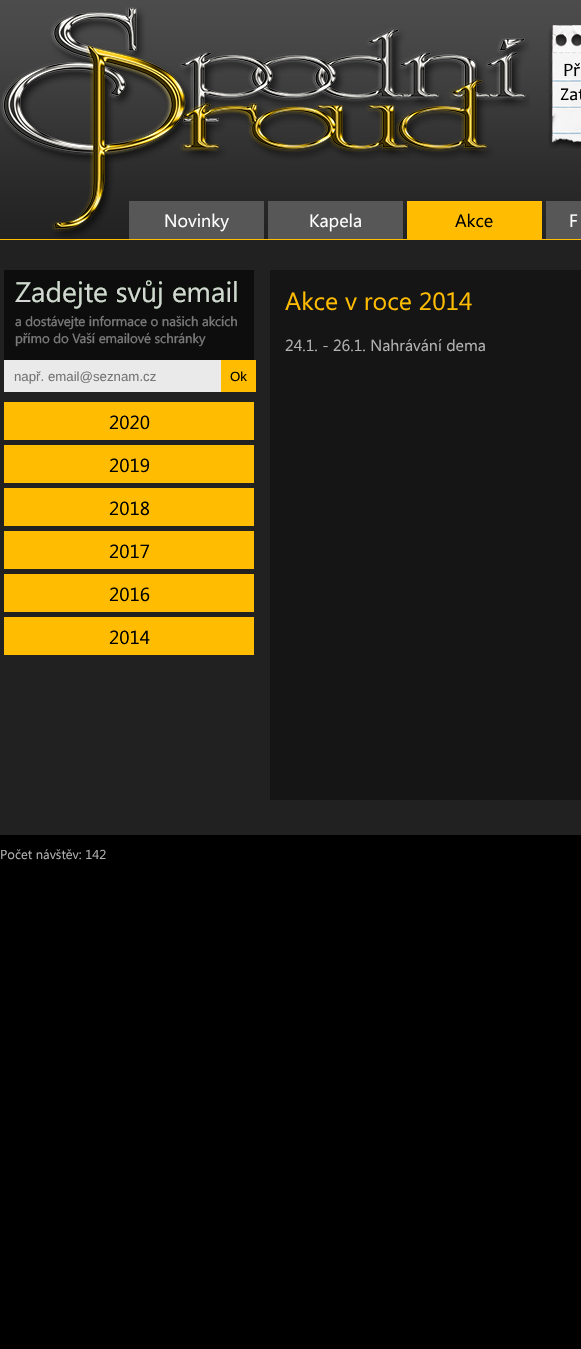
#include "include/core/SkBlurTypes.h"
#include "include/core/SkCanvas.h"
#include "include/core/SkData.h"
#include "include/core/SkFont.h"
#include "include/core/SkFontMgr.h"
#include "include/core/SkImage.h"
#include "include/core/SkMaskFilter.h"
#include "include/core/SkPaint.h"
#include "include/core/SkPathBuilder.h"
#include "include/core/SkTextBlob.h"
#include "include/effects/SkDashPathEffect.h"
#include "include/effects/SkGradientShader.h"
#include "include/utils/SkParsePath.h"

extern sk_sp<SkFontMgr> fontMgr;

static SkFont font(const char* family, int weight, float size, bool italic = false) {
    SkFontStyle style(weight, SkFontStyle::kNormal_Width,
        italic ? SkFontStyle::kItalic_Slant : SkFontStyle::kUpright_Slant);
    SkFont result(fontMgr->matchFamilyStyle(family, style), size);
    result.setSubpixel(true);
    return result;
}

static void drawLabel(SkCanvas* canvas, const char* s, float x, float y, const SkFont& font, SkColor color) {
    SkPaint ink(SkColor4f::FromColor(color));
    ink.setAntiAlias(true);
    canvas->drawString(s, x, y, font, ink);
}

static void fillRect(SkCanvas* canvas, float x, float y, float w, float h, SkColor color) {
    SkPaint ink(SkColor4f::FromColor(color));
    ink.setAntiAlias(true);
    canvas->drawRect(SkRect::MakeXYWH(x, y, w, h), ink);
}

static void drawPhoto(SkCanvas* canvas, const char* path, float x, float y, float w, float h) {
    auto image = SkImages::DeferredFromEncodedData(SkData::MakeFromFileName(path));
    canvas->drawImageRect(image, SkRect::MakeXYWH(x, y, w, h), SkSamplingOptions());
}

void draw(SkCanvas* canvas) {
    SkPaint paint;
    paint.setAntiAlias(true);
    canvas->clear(0xFF000000);
    fillRect(canvas, 0, 240, 581, 595, 0xFF212121);
    drawPhoto(canvas, "assets/img1.png", 0, 0, 581, 240);
    drawPhoto(canvas, "assets/img2.png", 0, 7, 530, 233);
    drawPhoto(canvas, "assets/img3.png", 548, 25, 33, 124);
    SkFont font1 = font("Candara", 400, 18);
    drawLabel(canvas, "Zat", 560, 100, font1, 0xFF000000);
    fillRect(canvas, 129, 201, 135, 38, 0xFF575757);
    SkFont font2 = font("Segoe UI", 400, 18);
    drawLabel(canvas, "Novinky", 164, 227, font2, 0xFFFFFFFF);
    fillRect(canvas, 268, 201, 135, 38, 0xFF575757);
    drawLabel(canvas, "Kapela", 309, 227, font2, 0xFFFFFFFF);
    fillRect(canvas, 407, 201, 135, 38, 0xFFFFBC01);
    drawLabel(canvas, "Akce", 455, 227, font2, 0xFF000000);
    fillRect(canvas, 546, 201, 35, 38, 0xFF575757);
    drawLabel(canvas, "F", 569, 227, font2, 0xFFFFFFFF);
    fillRect(canvas, 270, 270, 311, 530, 0xFF151515);
    SkFont font3 = font("Segoe UI", 400, 25);
    drawLabel(canvas, "Akce v roce 2014", 285, 310, font3, 0xFFFFBC01);
    SkFont font4 = font("Segoe UI", 400, 16);
    drawLabel(canvas, "24.1. - 26.1. Nahrávání dema", 285, 351, font4, 0xFFB2B2B2);
    drawPhoto(canvas, "assets/img4.png", 4, 270, 250, 90);
    fillRect(canvas, 4, 360, 217, 32, 0xFFEAEAEA);
    SkFont font5 = font("Liberation Sans", 400, 13.25f);
    drawLabel(canvas, "např. email@seznam.cz", 14, 381, font5, 0xFF757575);
    fillRect(canvas, 221, 360, 35, 32, 0xFFFFBC01);
    drawLabel(canvas, "Ok", 230, 381, font5, 0xFF000000);
    fillRect(canvas, 4, 402, 250, 38, 0xFFFFBC01);
    SkFont font6 = font("Segoe UI", 400, 19);
    drawLabel(canvas, "2020", 109, 429, font6, 0xFF000000);
    fillRect(canvas, 4, 445, 250, 38, 0xFFFFBC01);
    drawLabel(canvas, "2019", 109, 472, font6, 0xFF000000);
    fillRect(canvas, 4, 488, 250, 38, 0xFFFFBC01);
    drawLabel(canvas, "2018", 109, 515, font6, 0xFF000000);
    fillRect(canvas, 4, 531, 250, 38, 0xFFFFBC01);
    drawLabel(canvas, "2017", 109, 558, font6, 0xFF000000);
    fillRect(canvas, 4, 574, 250, 38, 0xFFFFBC01);
    drawLabel(canvas, "2016", 109, 601, font6, 0xFF000000);
    fillRect(canvas, 4, 617, 250, 38, 0xFFFFBC01);
    drawLabel(canvas, "2014", 109, 644, font6, 0xFF000000);
    SkFont font7 = font("Segoe UI", 400, 13);
    drawLabel(canvas, "Počet návštěv: 142", 0, 859, font7, 0xFFB2B2B2);
}
